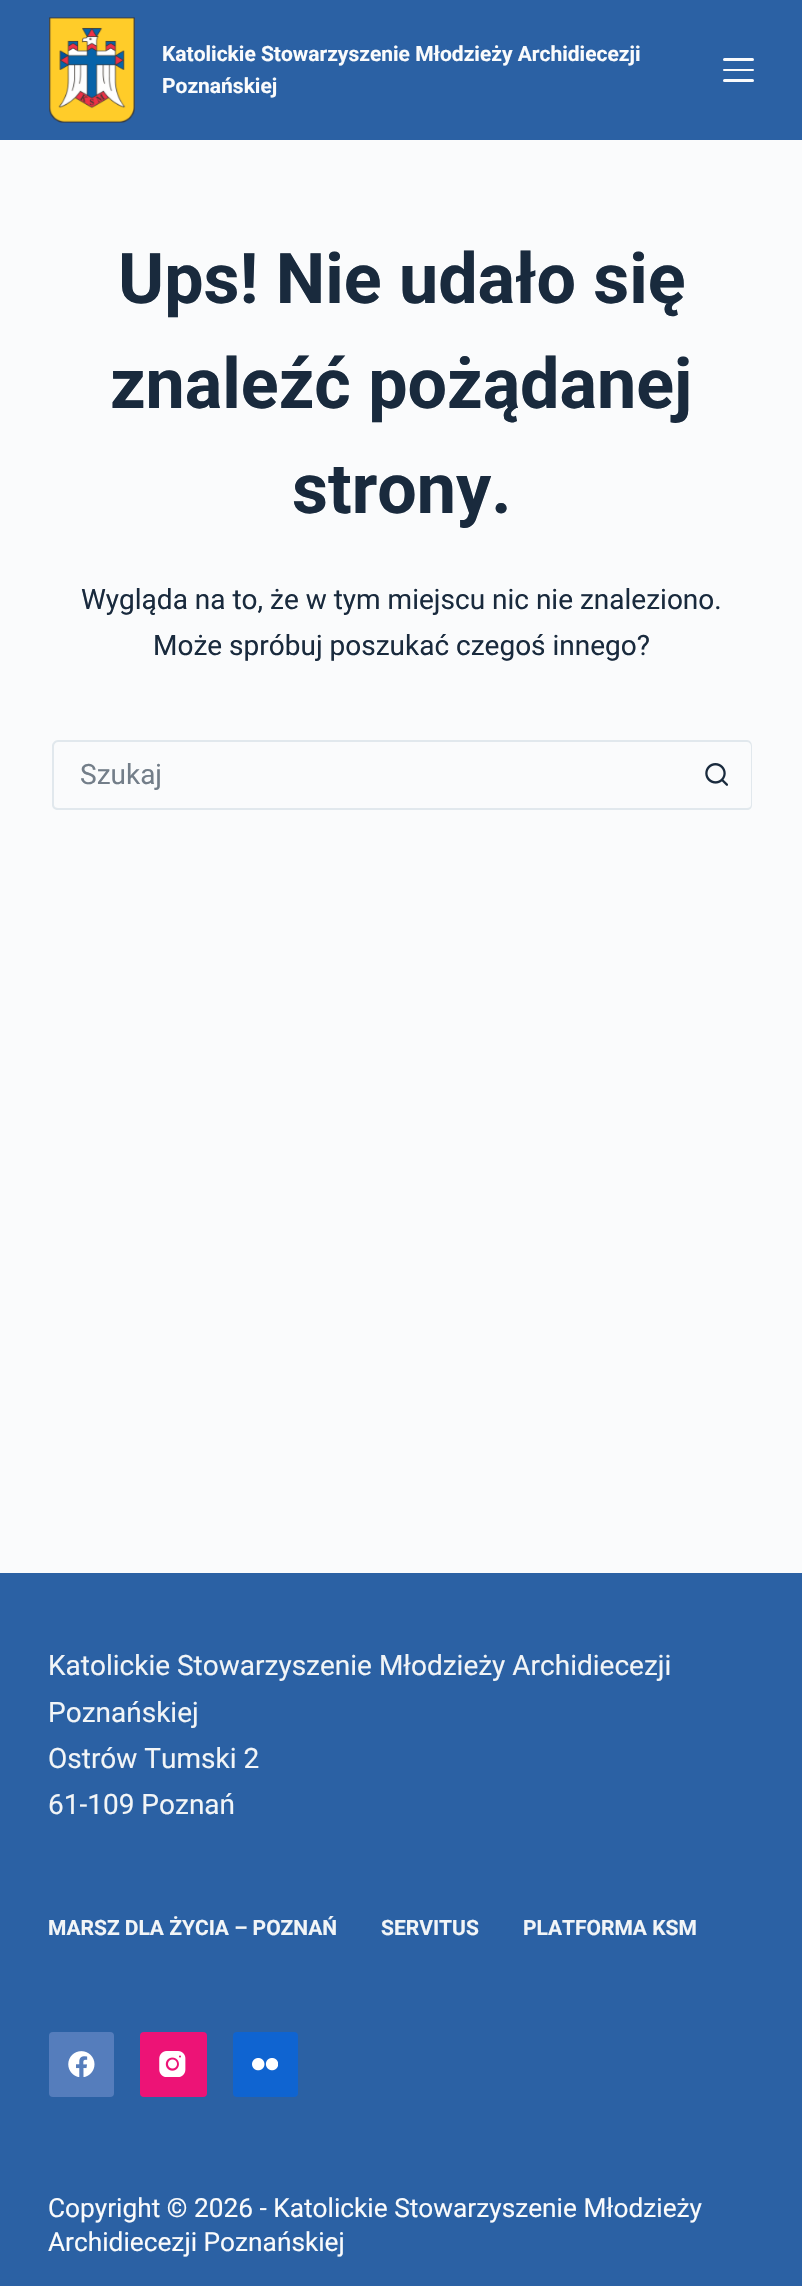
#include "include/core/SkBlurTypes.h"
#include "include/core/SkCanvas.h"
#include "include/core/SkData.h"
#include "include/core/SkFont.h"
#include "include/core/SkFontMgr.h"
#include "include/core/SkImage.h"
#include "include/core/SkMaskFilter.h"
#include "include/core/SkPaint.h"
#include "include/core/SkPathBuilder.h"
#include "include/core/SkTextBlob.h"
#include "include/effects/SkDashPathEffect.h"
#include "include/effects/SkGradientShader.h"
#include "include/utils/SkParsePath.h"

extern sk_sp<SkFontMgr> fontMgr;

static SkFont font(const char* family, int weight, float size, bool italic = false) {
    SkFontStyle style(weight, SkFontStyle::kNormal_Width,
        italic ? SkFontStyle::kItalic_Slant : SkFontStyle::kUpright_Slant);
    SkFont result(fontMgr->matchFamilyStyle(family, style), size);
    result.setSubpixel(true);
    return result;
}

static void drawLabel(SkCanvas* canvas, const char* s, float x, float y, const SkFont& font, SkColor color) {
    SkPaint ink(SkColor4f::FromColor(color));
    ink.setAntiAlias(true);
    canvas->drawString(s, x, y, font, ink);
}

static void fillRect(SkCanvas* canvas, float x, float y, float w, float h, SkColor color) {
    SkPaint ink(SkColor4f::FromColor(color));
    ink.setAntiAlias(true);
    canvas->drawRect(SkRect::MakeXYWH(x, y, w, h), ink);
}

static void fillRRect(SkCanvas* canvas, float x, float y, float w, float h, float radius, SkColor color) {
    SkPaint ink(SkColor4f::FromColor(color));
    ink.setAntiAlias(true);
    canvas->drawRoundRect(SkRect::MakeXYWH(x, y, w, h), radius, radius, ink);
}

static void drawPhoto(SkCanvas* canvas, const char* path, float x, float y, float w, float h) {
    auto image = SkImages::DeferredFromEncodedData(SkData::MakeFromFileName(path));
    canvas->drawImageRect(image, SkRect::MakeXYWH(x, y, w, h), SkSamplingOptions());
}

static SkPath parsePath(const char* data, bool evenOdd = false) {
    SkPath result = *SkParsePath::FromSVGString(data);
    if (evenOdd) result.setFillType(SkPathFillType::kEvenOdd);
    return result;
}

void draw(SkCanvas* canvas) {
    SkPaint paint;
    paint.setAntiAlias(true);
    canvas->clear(0xFFFAFBFC);
    fillRect(canvas, 0, 0, 802, 140, 0xFF2B61A4);
    drawPhoto(canvas, "assets/img1.png", 49, 17, 86, 106);
    SkFont font1 = font("Roboto", 700, 21);
    drawLabel(canvas, "Katolickie Stowarzyszenie Młodzieży Archidiecezji", 162, 61, font1, 0xFFFAFBFC);
    drawLabel(canvas, "Poznańskiej", 162, 93, font1, 0xFFFAFBFC);
    fillRRect(canvas, 723, 58, 31, 3, 1.5f, 0xFFFAFBFC);
    fillRRect(canvas, 723, 69, 31, 2, 1, 0xFFFAFBFC);
    fillRRect(canvas, 723, 79, 31, 3, 1.5f, 0xFFFAFBFC);
    SkFont font2 = font("Roboto", 700, 70);
    drawLabel(canvas, "Ups! Nie udało się", 118, 303, font2, 0xFF192A3D);
    drawLabel(canvas, "znaleźć pożądanej", 110, 408, font2, 0xFF192A3D);
    drawLabel(canvas, "strony.", 292, 513, font2, 0xFF192A3D);
    SkFont font3 = font("Roboto", 400, 28);
    drawLabel(canvas, "Wygląda na to, że w tym miejscu nic nie znaleziono.", 81, 609, font3, 0xFF192A3D);
    drawLabel(canvas, "Może spróbuj poszukać czegoś innego?", 153, 655, font3, 0xFF192A3D);
    paint.setColor(0xFFE1E8ED);
    canvas->drawPath(parsePath("M58 740H682V810H58C55 810 52 808 52 805V746C52 743 55 740 58 740ZM58 742H682V808H58C56 808 54 807 54 805V746C54 744 56 742 58 742Z", true), paint);
    drawLabel(canvas, "Szukaj", 80, 784, font3, 0xFF737E89);
    canvas->drawPath(parsePath("M682 740H747C750 740 752 743 752 746V805C752 808 750 810 747 810H682ZM682 742H747C749 742 751 744 751 746V805C751 807 749 808 747 808H682Z", true), paint);
    drawPhoto(canvas, "assets/img2.png", 705, 763, 23, 23);
    fillRect(canvas, 0, 1573, 802, 713, 0xFF2B61A4);
    drawLabel(canvas, "Katolickie Stowarzyszenie Młodzieży Archidiecezji", 48, 1675, font3, 0xFFF2F5F7);
    drawLabel(canvas, "Poznańskiej", 48, 1722, font3, 0xFFF2F5F7);
    drawLabel(canvas, "Ostrów Tumski 2", 48, 1768, font3, 0xFFF2F5F7);
    drawLabel(canvas, "61-109 Poznań", 48, 1814, font3, 0xFFF2F5F7);
    drawLabel(canvas, "MARSZ DLA ŻYCIA – POZNAŃ", 48, 1935, font1, 0xFFF2F5F7);
    drawLabel(canvas, "SERVITUS", 381, 1935, font1, 0xFFF2F5F7);
    drawLabel(canvas, "PLATFORMA KSM", 523, 1935, font1, 0xFFF2F5F7);
    fillRRect(canvas, 49, 2032, 65, 65, 4, 0xFF557DBC);
    drawPhoto(canvas, "assets/img3.png", 68, 2051, 27, 26);
    fillRRect(canvas, 140, 2032, 67, 65, 4, 0xFFED1376);
    drawPhoto(canvas, "assets/img4.png", 159, 2051, 27, 26);
    fillRRect(canvas, 233, 2032, 65, 65, 4, 0xFF0F64D1);
    drawPhoto(canvas, "assets/img5.png", 252, 2058, 26, 13);
    SkFont font4 = font("Roboto", 400, 26.25f);
    drawLabel(canvas, "Copyright © 2026 - Katolickie Stowarzyszenie Młodzieży", 48, 2217, font4, 0xFFFAFBFC);
    drawLabel(canvas, "Archidiecezji Poznańskiej", 48, 2251, font4, 0xFFFAFBFC);
}
